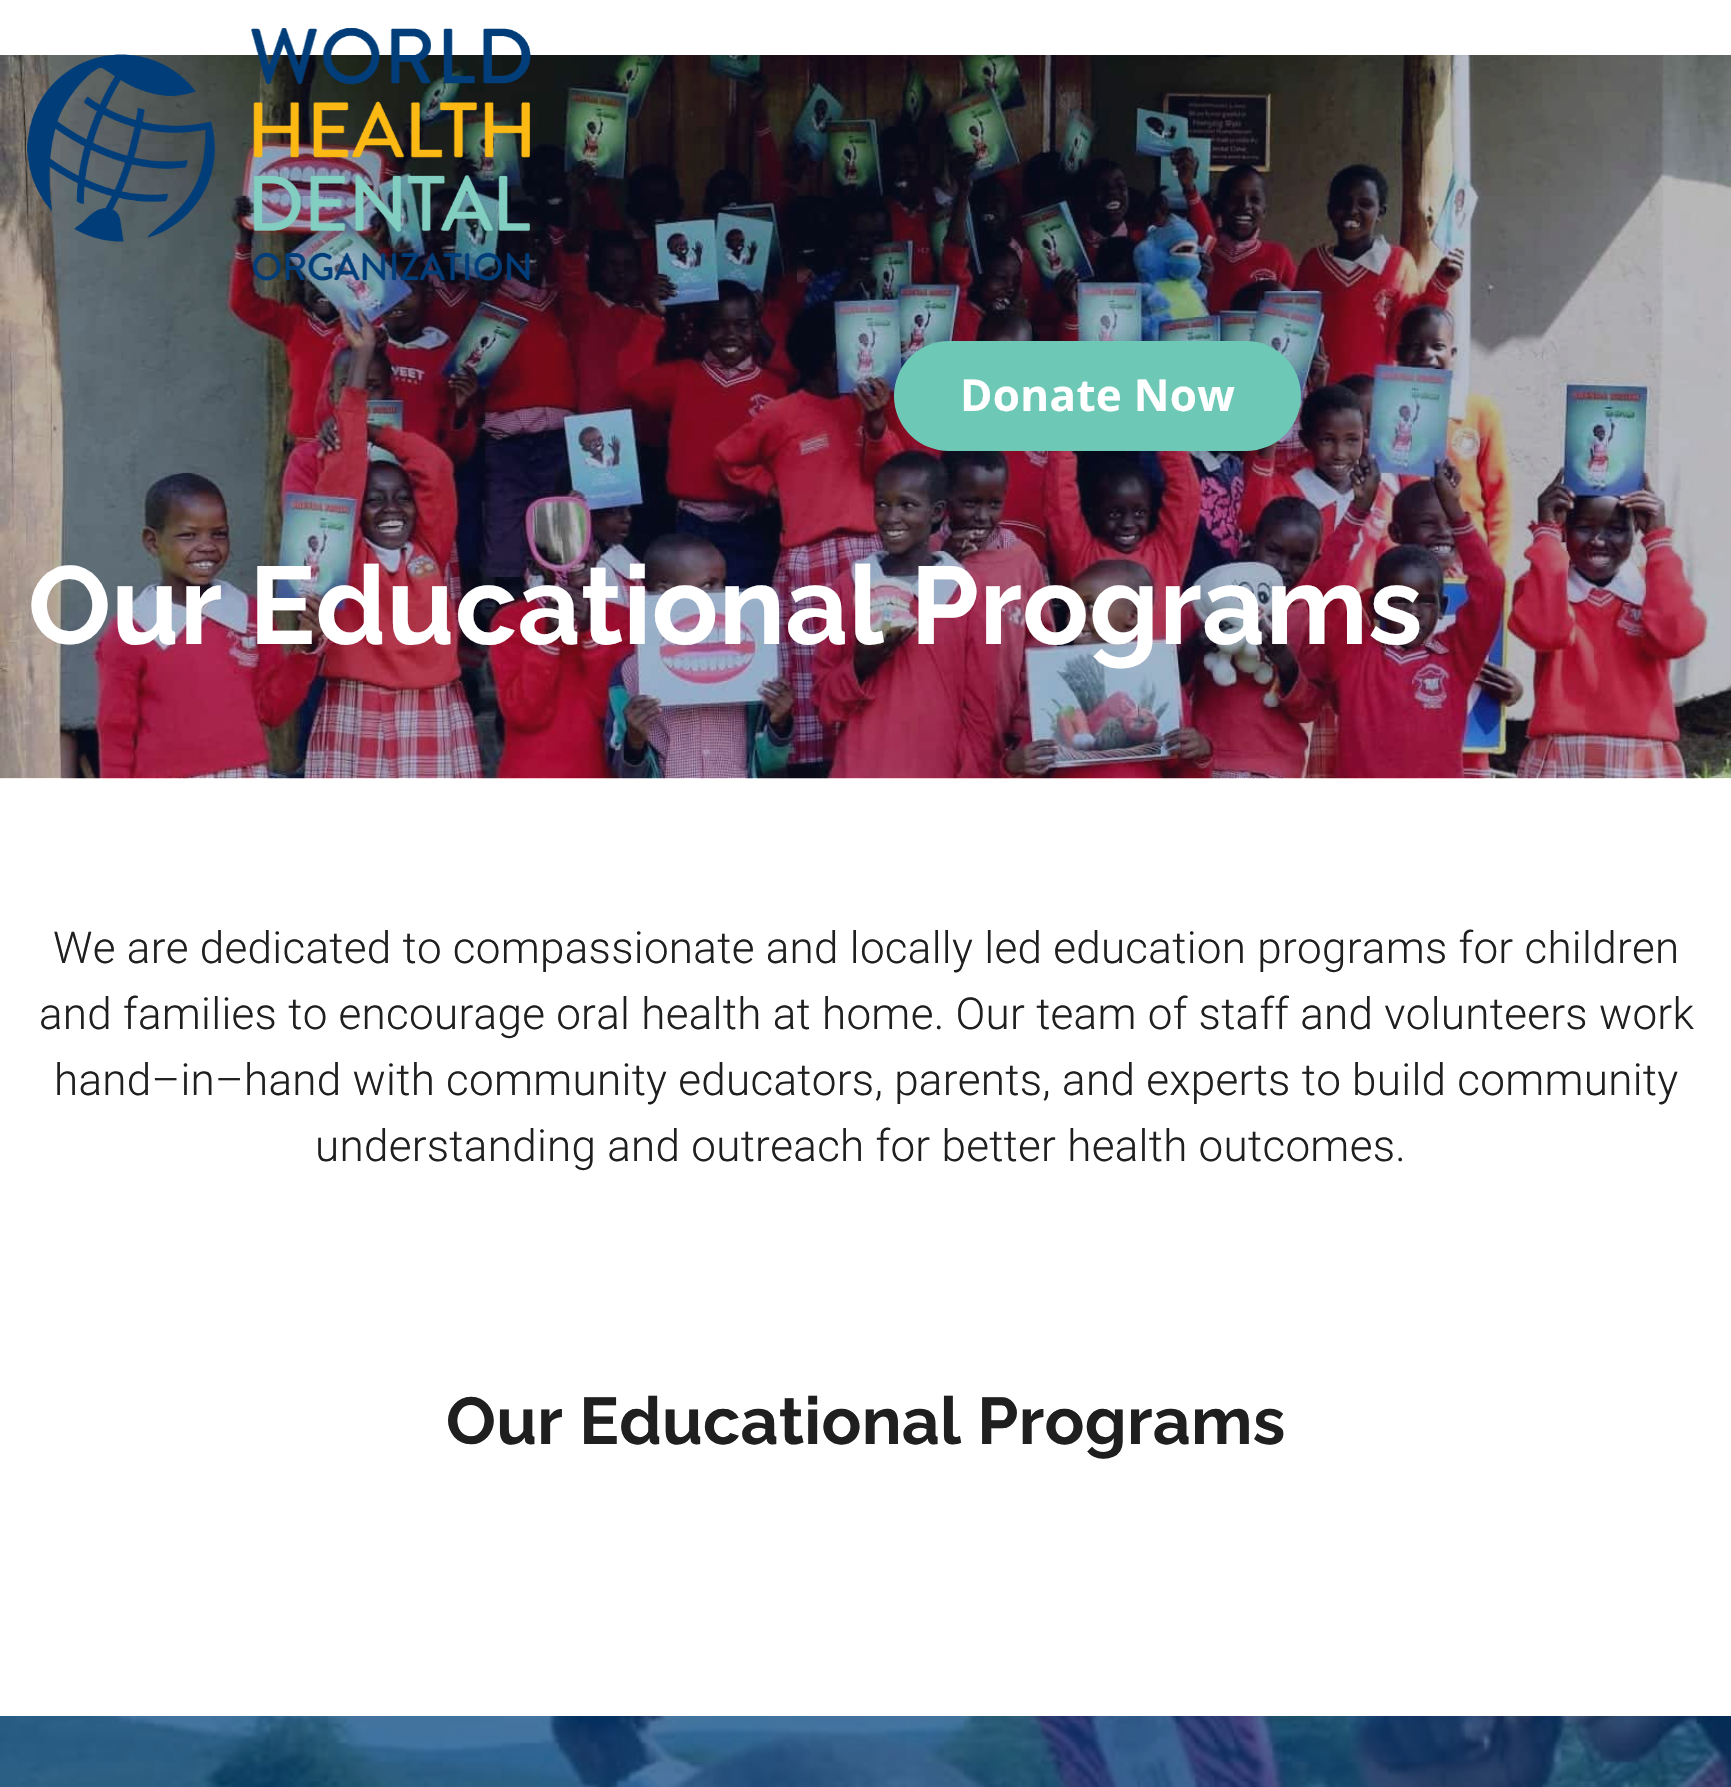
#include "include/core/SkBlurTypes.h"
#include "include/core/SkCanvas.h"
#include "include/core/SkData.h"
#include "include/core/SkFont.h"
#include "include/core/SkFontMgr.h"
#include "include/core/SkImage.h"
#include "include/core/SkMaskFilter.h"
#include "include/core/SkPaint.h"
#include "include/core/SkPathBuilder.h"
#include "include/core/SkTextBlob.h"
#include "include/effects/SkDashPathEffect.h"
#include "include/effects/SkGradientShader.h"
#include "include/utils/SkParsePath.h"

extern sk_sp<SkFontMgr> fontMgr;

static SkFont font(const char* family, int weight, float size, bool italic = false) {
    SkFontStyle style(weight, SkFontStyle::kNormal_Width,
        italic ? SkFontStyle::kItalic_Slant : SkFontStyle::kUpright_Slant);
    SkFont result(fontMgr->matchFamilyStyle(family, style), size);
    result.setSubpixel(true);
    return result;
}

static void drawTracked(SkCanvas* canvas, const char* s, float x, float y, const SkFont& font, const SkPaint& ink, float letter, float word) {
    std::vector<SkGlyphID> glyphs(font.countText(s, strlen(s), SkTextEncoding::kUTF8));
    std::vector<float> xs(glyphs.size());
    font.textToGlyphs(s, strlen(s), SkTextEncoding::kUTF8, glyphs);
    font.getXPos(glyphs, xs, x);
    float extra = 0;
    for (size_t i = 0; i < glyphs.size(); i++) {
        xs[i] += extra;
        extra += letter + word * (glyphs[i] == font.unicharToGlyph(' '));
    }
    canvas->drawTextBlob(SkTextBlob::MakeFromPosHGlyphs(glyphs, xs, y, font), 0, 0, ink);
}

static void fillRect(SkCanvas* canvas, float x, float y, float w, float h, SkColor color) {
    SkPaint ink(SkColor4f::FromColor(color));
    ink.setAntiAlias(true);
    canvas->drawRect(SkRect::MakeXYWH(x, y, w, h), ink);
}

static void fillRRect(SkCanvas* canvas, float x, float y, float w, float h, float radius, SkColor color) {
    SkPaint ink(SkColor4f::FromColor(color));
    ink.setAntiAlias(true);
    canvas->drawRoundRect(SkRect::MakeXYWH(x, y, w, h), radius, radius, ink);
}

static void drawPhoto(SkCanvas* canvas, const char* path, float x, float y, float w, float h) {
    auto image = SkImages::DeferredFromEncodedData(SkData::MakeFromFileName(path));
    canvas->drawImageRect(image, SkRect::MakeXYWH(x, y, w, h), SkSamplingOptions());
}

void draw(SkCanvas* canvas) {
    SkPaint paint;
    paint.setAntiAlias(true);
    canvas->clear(0xFFFFFFFF);
    drawPhoto(canvas, "assets/img2.png", 0, 55, 1731, 724);
    drawPhoto(canvas, "assets/img1.png", 27, 28, 504, 253);
    fillRect(canvas, 393, 336, 80, 90, 0x0D000000);
    fillRRect(canvas, 894, 341, 407, 110, 55, 0xFF6DC9B6);
    SkFont font1 = font("Open Sans", 700, 44);
    paint.setColor(0xFFFFFFFF);
    drawTracked(canvas, "Donate Now", 960, 411, font1, paint, 0.28f, 0);
    SkFont font2 = font("Raleway", 700, 110);
    drawTracked(canvas, "Our Educational Programs", 28, 644, font2, paint, 0.28f, 0);
    SkFont font3 = font("Roboto", 300, 44);
    paint.setColor(0xFF1F1F1F);
    drawTracked(canvas, "We are dedicated to compassionate and locally led education programs for children", 53, 963, font3, paint, 0.28f, 0);
    drawTracked(canvas, "and families to encourage oral health at home. Our team of staff and volunteers work", 39, 1029, font3, paint, 0.28f, 0);
    drawTracked(canvas, "hand–in–hand with community educators, parents, and experts to build community", 54, 1095, font3, paint, 0.28f, 0);
    drawTracked(canvas, "understanding and outreach for better health outcomes.", 315, 1161, font3, paint, 0.28f, 0);
    SkFont font4 = font("Raleway", 700, 66);
    drawTracked(canvas, "Our Educational Programs", 446, 1444, font4, paint, 0.28f, 0);
    drawPhoto(canvas, "assets/img3.png", 0, 1716, 1731, 71);
}
